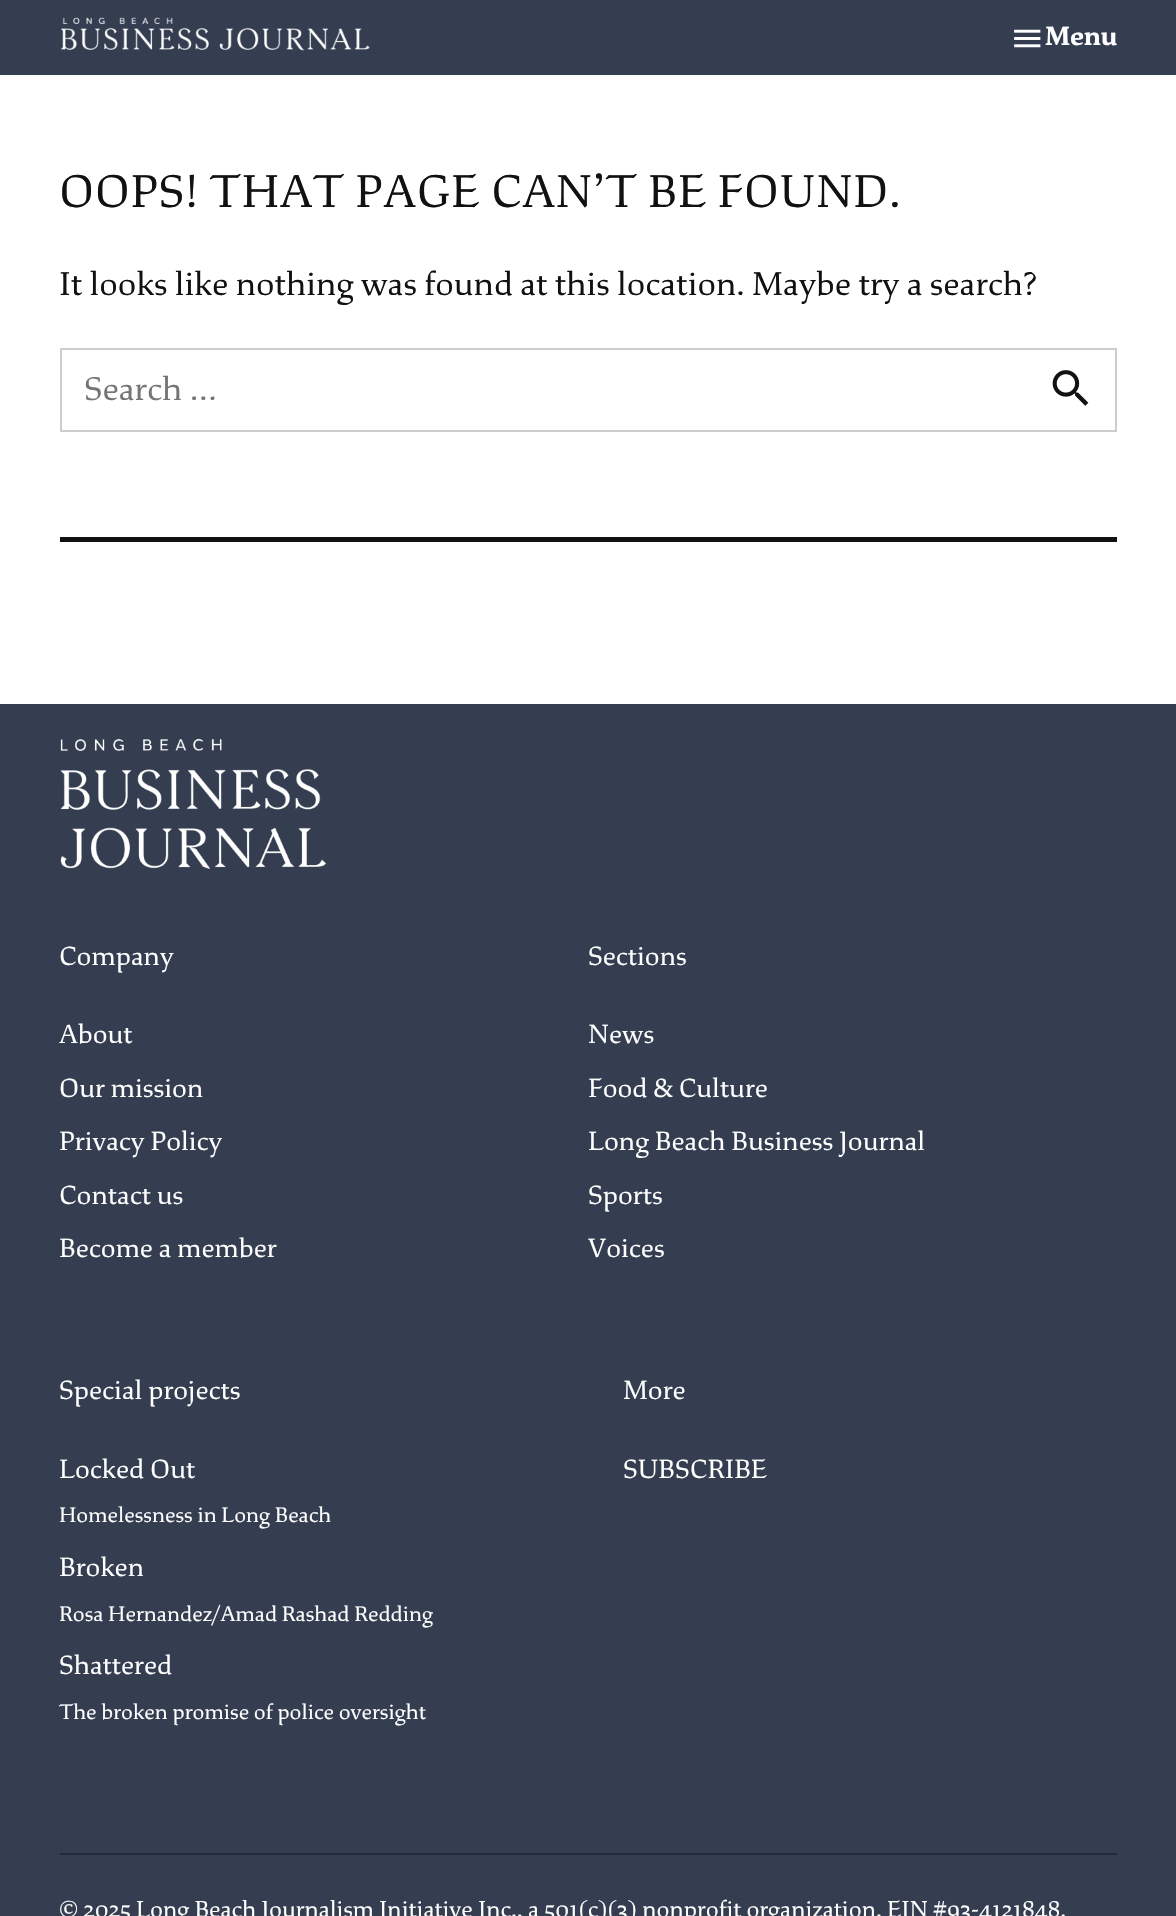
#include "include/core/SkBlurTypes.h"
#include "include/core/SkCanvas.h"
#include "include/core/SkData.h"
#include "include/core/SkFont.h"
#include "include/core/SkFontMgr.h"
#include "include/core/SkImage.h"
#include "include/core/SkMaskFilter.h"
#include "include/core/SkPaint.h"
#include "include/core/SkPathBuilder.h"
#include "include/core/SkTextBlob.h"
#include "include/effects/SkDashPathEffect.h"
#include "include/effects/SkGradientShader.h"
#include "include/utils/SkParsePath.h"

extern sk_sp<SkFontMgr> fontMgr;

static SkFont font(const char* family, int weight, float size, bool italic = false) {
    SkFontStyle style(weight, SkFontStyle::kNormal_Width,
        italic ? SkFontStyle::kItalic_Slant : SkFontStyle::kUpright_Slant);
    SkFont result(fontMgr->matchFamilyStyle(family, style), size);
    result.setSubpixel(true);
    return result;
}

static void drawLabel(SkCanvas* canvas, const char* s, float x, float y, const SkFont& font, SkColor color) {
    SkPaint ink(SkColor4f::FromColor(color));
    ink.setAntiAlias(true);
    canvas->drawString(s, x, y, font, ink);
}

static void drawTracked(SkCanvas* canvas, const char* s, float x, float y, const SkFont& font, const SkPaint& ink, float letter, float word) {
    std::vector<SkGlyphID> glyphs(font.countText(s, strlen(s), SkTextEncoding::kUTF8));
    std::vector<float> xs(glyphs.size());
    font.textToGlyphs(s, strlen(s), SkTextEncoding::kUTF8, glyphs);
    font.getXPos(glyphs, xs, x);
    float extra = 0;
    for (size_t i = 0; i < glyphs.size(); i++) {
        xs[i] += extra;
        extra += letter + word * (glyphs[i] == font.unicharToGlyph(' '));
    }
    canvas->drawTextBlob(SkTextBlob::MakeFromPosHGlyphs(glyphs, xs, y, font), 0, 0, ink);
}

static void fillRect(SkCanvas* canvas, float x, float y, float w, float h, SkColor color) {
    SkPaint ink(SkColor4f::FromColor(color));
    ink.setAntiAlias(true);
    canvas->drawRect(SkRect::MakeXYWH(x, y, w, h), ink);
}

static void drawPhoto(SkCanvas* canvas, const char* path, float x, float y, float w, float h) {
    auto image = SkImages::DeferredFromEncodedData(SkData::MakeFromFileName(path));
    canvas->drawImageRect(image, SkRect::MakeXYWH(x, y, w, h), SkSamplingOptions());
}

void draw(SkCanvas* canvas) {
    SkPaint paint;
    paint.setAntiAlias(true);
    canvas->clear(0xFFFFFFFF);
    fillRect(canvas, 0, 0, 1176, 75, 0xFF343E50);
    drawPhoto(canvas, "assets/img1.png", 61, 17, 309, 34);
    drawPhoto(canvas, "assets/img2.png", 1014, 29, 27, 19);
    SkFont font1 = font("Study", 700, 28);
    drawLabel(canvas, "Menu", 1045, 45, font1, 0xFFFFFFFF);
    fillRect(canvas, 60, 537, 1057, 5, 0xFF111111);
    SkFont font2 = font("Study", 400, 49);
    paint.setColor(0xFF111111);
    drawTracked(canvas, "OOPS! THAT PAGE CAN’T BE FOUND.", 59, 207, font2, paint, 0.5f, 0);
    SkFont font3 = font("Study", 400, 35);
    drawLabel(canvas, "It looks like nothing was found at this location. Maybe try a search?", 59, 295, font3, 0xFF111111);
    paint.setStroke(true);
    paint.setStrokeWidth(2);
    paint.setColor(0xFFCCCCCC);
    canvas->drawRect(SkRect::MakeXYWH(61, 349, 1055, 82), paint);
    drawLabel(canvas, "Search …", 84, 400, font3, 0xFF757575);
    drawPhoto(canvas, "assets/img3.png", 1052, 370, 37, 36);
    fillRect(canvas, 0, 704, 1176, 1212, 0xFF343E50);
    drawPhoto(canvas, "assets/img4.png", 60, 738, 266, 131);
    SkFont font4 = font("Study", 400, 28);
    drawLabel(canvas, "Company", 59, 965, font4, 0xFFFFFFFF);
    drawLabel(canvas, "About", 59, 1043, font4, 0xFFFFFFFF);
    drawLabel(canvas, "Our mission", 59, 1097, font4, 0xFFFFFFFF);
    drawLabel(canvas, "Privacy Policy", 59, 1150, font4, 0xFFFFFFFF);
    drawLabel(canvas, "Contact us", 59, 1204, font4, 0xFFFFFFFF);
    drawLabel(canvas, "Become a member", 59, 1257, font4, 0xFFFFFFFF);
    drawLabel(canvas, "Sections", 588, 965, font4, 0xFFFFFFFF);
    drawLabel(canvas, "News", 588, 1043, font4, 0xFFFFFFFF);
    drawLabel(canvas, "Food & Culture", 588, 1097, font4, 0xFFFFFFFF);
    drawLabel(canvas, "Long Beach Business Journal", 588, 1150, font4, 0xFFFFFFFF);
    drawLabel(canvas, "Sports", 588, 1204, font4, 0xFFFFFFFF);
    drawLabel(canvas, "Voices", 588, 1257, font4, 0xFFFFFFFF);
    drawLabel(canvas, "Special projects", 59, 1399, font4, 0xFFFFFFFF);
    drawLabel(canvas, "Locked Out", 59, 1478, font4, 0xFFFFFFFF);
    SkFont font5 = font("Study", 400, 22.4f);
    drawLabel(canvas, "Homelessness in Long Beach", 59, 1522, font5, 0xFFFFFFFF);
    drawLabel(canvas, "Broken", 59, 1576, font4, 0xFFFFFFFF);
    drawLabel(canvas, "Rosa Hernandez/Amad Rashad Redding", 59, 1621, font5, 0xFFFFFFFF);
    drawLabel(canvas, "Shattered", 59, 1674, font4, 0xFFFFFFFF);
    drawLabel(canvas, "The broken promise of police oversight", 59, 1719, font5, 0xFFFFFFFF);
    drawLabel(canvas, "More", 623, 1399, font4, 0xFFFFFFFF);
    drawLabel(canvas, "SUBSCRIBE", 623, 1478, font4, 0xFFFFFFFF);
    fillRect(canvas, 60, 1853, 1057, 2, 0xFF202A3C);
    SkFont font6 = font("Study", 400, 24.5f);
    drawLabel(canvas, "© 2025 Long Beach Journalism Initiative Inc., a 501(c)(3) nonprofit organization. EIN #93-4121848.", 59, 1917, font6, 0xFFFFFFFF);
}
